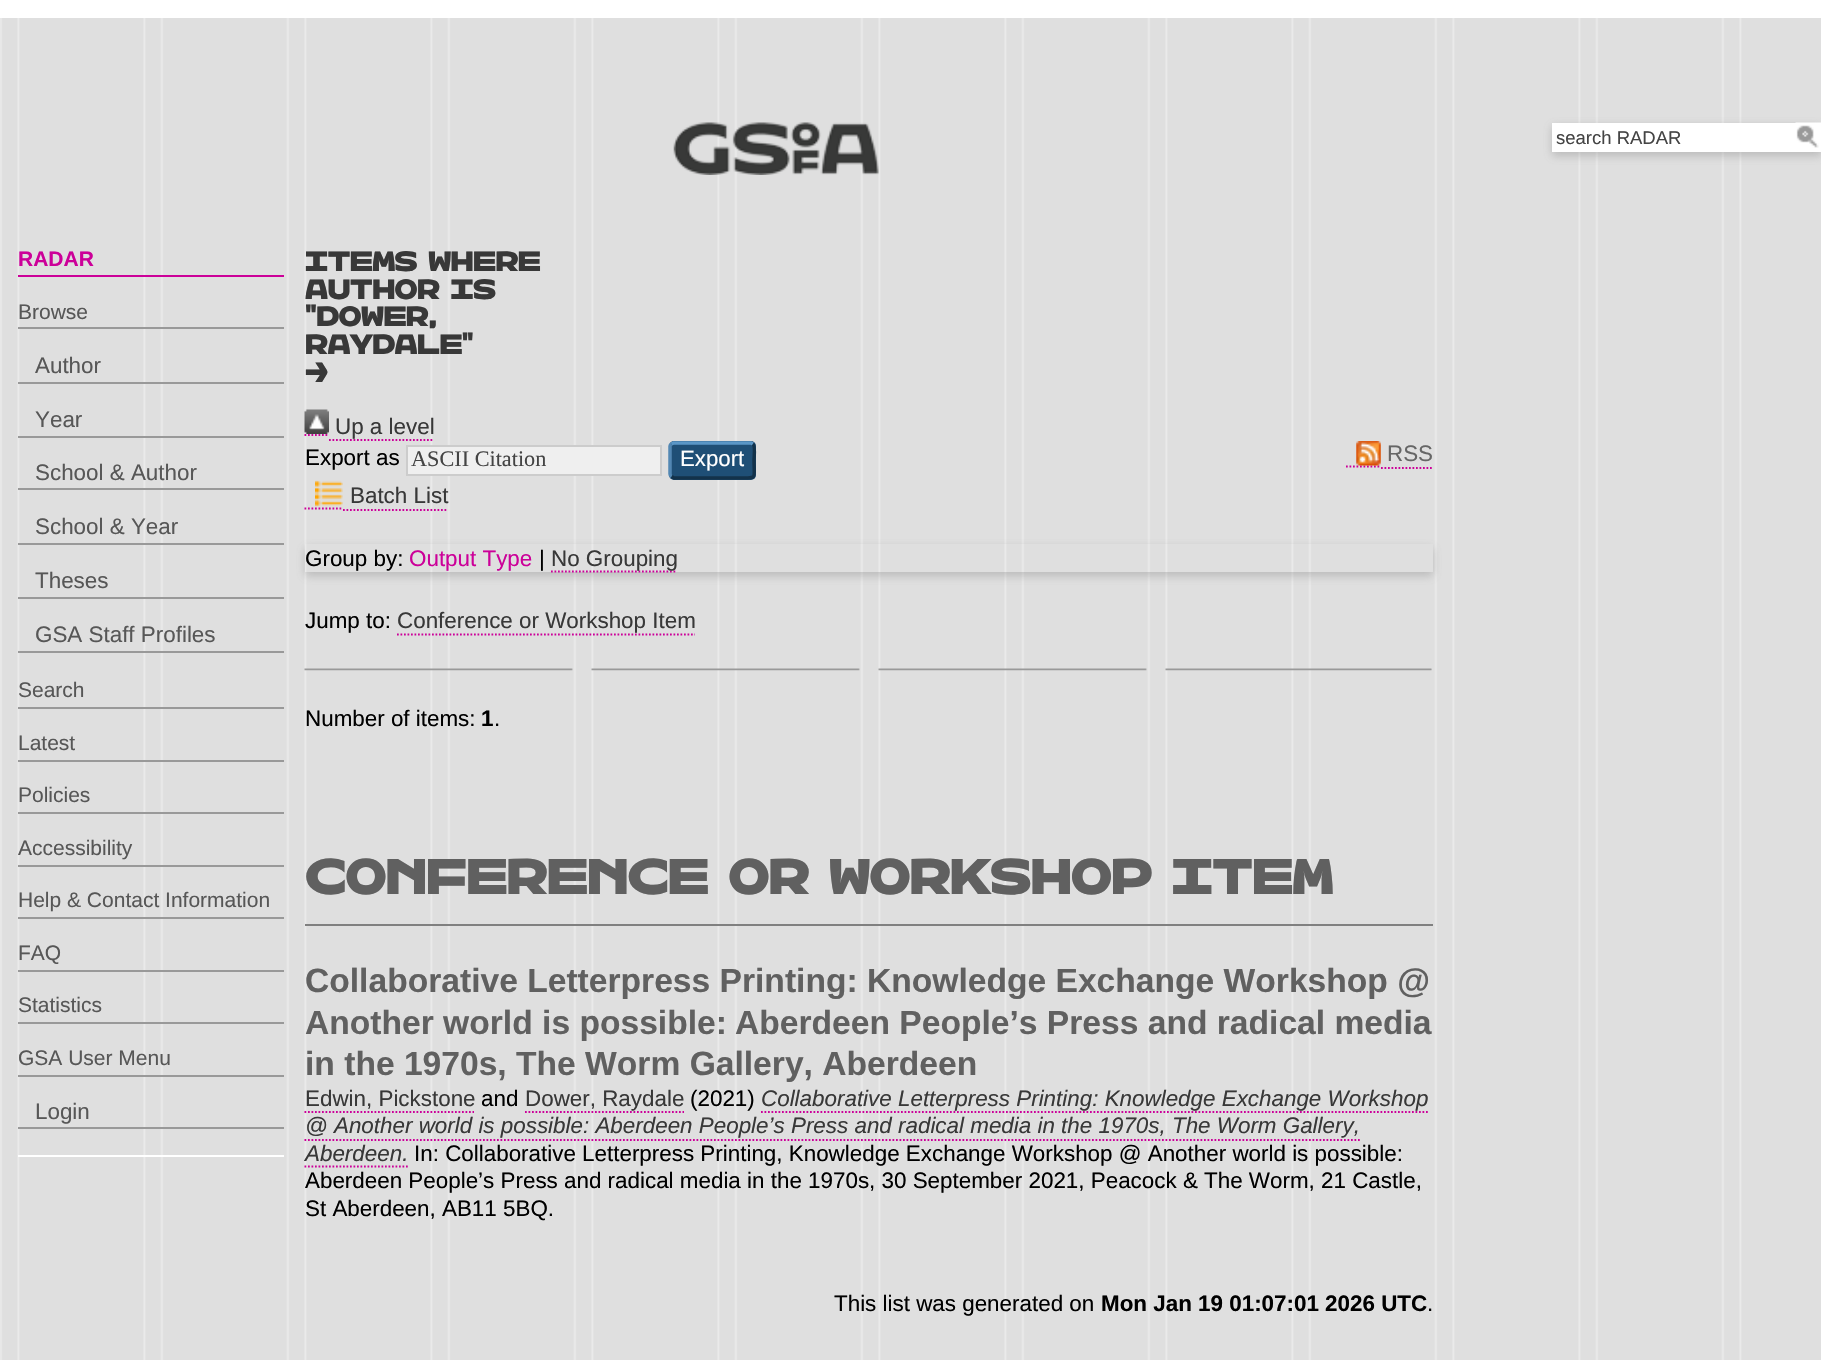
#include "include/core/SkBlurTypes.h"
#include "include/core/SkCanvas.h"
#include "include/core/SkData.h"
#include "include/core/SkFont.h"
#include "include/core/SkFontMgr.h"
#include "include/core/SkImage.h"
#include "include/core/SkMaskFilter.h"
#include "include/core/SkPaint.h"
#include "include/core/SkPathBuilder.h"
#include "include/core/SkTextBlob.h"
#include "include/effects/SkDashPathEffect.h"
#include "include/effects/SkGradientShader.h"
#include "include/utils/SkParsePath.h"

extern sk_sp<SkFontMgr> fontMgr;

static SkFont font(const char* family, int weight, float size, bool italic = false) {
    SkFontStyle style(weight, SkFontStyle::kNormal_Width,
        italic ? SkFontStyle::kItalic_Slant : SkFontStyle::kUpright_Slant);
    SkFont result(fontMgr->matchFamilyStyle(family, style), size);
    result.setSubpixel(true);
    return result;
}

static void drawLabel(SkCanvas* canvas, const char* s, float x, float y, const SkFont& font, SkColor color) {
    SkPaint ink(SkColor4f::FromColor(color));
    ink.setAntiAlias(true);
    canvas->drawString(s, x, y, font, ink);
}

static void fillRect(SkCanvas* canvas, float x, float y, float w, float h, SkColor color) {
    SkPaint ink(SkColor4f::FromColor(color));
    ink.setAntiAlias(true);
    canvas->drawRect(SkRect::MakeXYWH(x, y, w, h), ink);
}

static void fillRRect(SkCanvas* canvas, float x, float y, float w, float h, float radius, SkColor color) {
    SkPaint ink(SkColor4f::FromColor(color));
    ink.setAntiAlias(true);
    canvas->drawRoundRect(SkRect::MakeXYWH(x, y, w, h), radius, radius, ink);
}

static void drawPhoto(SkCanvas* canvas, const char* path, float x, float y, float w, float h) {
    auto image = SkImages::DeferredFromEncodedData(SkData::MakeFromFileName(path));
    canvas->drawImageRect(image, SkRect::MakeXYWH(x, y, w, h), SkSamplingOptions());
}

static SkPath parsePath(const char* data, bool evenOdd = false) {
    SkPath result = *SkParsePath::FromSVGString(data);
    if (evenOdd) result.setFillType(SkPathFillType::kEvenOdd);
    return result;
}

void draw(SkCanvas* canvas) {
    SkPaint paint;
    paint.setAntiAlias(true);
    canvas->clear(0xFFFFFFFF);
    drawPhoto(canvas, "assets/img1.png", 0, 18, 1821, 1342);
    drawPhoto(canvas, "assets/img2.png", 673, 122, 206, 53);
    paint.setColor(0x4D646464);
    paint.setMaskFilter(SkMaskFilter::MakeBlur(kNormal_SkBlurStyle, 5));
    canvas->drawRect(SkRect::MakeXYWH(1552, 126, 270, 30), paint);
    paint.setMaskFilter(nullptr);
    fillRect(canvas, 1552, 123, 269, 29, 0xFFFFFFFF);
    SkFont font1 = font("Liberation Sans", 400, 18.5f);
    drawLabel(canvas, "search RADAR", 1556, 144, font1, 0xFF444444);
    drawPhoto(canvas, "assets/img3.png", 1795, 122, 26, 26);
    fillRect(canvas, 18, 1155, 266, 2, 0xFFFFFFFF);
    fillRect(canvas, 18, 275, 266, 2, 0xFFCC0099);
    SkFont font2 = font("Liberation Sans", 700, 21);
    drawLabel(canvas, "RADAR", 18, 266, font2, 0xFFCC0099);
    fillRect(canvas, 18, 327, 266, 2, 0xFF999999);
    SkFont font3 = font("Liberation Sans", 400, 21);
    drawLabel(canvas, "Browse", 18, 319, font3, 0xFF575757);
    fillRect(canvas, 18, 382, 266, 2, 0xFF999999);
    SkFont font4 = font("Liberation Sans", 400, 22.4f);
    drawLabel(canvas, "Author", 35, 373, font4, 0xFF575757);
    fillRect(canvas, 18, 436, 266, 2, 0xFF999999);
    drawLabel(canvas, "Year", 35, 427, font4, 0xFF575757);
    fillRect(canvas, 18, 488, 266, 2, 0xFF999999);
    drawLabel(canvas, "School & Author", 35, 480, font4, 0xFF575757);
    fillRect(canvas, 18, 543, 266, 2, 0xFF999999);
    drawLabel(canvas, "School & Year", 35, 534, font4, 0xFF575757);
    fillRect(canvas, 18, 597, 266, 2, 0xFF999999);
    drawLabel(canvas, "Theses", 35, 588, font4, 0xFF575757);
    fillRect(canvas, 18, 651, 266, 2, 0xFF999999);
    drawLabel(canvas, "GSA Staff Profiles", 35, 642, font4, 0xFF575757);
    fillRect(canvas, 18, 707, 266, 2, 0xFF999999);
    drawLabel(canvas, "Search", 18, 697, font3, 0xFF575757);
    fillRect(canvas, 18, 760, 266, 2, 0xFF999999);
    drawLabel(canvas, "Latest", 18, 750, font3, 0xFF575757);
    fillRect(canvas, 18, 812, 266, 2, 0xFF999999);
    drawLabel(canvas, "Policies", 18, 802, font3, 0xFF575757);
    fillRect(canvas, 18, 865, 266, 2, 0xFF999999);
    drawLabel(canvas, "Accessibility", 18, 855, font3, 0xFF575757);
    fillRect(canvas, 18, 917, 266, 2, 0xFF999999);
    drawLabel(canvas, "Help & Contact Information", 18, 907, font3, 0xFF575757);
    fillRect(canvas, 18, 970, 266, 2, 0xFF999999);
    drawLabel(canvas, "FAQ", 18, 960, font3, 0xFF575757);
    fillRect(canvas, 18, 1022, 266, 2, 0xFF999999);
    drawLabel(canvas, "Statistics", 18, 1012, font3, 0xFF575757);
    fillRect(canvas, 18, 1075, 266, 2, 0xFF999999);
    drawLabel(canvas, "GSA User Menu", 18, 1065, font3, 0xFF575757);
    fillRect(canvas, 18, 1127, 266, 2, 0xFF999999);
    drawLabel(canvas, "Login", 35, 1119, font4, 0xFF575757);
    SkFont font5 = font("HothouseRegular", 700, 22.4f);
    drawLabel(canvas, "ITEMS WHERE", 305, 271, font5, 0xFF383838);
    drawLabel(canvas, "AUTHOR IS", 305, 299, font5, 0xFF383838);
    drawLabel(canvas, "\"DOWER,", 305, 326, font5, 0xFF383838);
    drawLabel(canvas, "RAYDALE\"", 305, 354, font5, 0xFF383838);
    drawLabel(canvas, ">", 305, 382, font5, 0xFF383838);
    drawPhoto(canvas, "assets/img4.png", 304, 409, 25, 25);
    drawLabel(canvas, "Up a level", 335, 434, font4, 0xFF383838);
    paint.setStroke(true);
    paint.setStrokeWidth(1.8f);
    paint.setColor(0xFFCC0099);
    paint.setPathEffect(SkDashPathEffect::Make({{1.75f, 1.75f}}, 0));
    canvas->drawPath(parsePath("M304.5 435H329"), paint);
    paint.setPathEffect(nullptr);
    paint.setPathEffect(SkDashPathEffect::Make({{1.75f, 1.75f}}, 0));
    canvas->drawPath(parsePath("M329 440H434"), paint);
    paint.setPathEffect(nullptr);
    drawLabel(canvas, "Export as", 305, 465, font4, 0xFF000000);
    paint.setStroke(false);
    paint.setColor(0xFFEFEFEF);
    canvas->drawRect(SkRect::MakeXYWH(407, 446, 254, 29), paint);
    paint.setStroke(true);
    paint.setStrokeWidth(2);
    paint.setColor(0xFFCCCCCC);
    canvas->drawRect(SkRect::MakeXYWH(407, 446, 254, 29), paint);
    SkFont font6 = font("Liberation Serif", 400, 22.25f);
    drawLabel(canvas, "ASCII Citation", 411, 466, font6, 0xFF444444);
    fillRRect(canvas, 669, 441, 87, 39, 5, 0xFF1F4F76);
    paint.setStrokeWidth(3.5f);
    paint.setColor(0xFF5B97C7);
    canvas->drawPath(parsePath("M671.5 444L673.5 443H751L753 444"), paint);
    paint.setColor(0xFF13324A);
    canvas->drawPath(parsePath("M753 444C755.5 446 754 457 754 460C754 480 758 478 738 478H674L671.5 476.5"), paint);
    paint.setColor(0xFF5287B3);
    canvas->drawPath(parsePath("M671.5 476.5C670.5 476 670 475 670 474V446C670 445.5 670.5 444.5 671.5 444"), paint);
    SkFont font7 = font("Liberation Sans", 400, 22.25f);
    drawLabel(canvas, "Export", 680, 466, font7, 0xFFFFFFFF);
    paint.setStrokeWidth(1.8f);
    paint.setColor(0xFFCC0099);
    paint.setPathEffect(SkDashPathEffect::Make({{1.75f, 1.75f}}, 0));
    canvas->drawPath(parsePath("M1346 466.5H1381"), paint);
    paint.setPathEffect(nullptr);
    drawPhoto(canvas, "assets/img5.png", 1356, 441, 25, 25);
    drawLabel(canvas, "RSS", 1387, 461, font4, 0xFF666666);
    paint.setPathEffect(SkDashPathEffect::Make({{1.75f, 1.75f}}, 0));
    canvas->drawPath(parsePath("M1381 468H1433"), paint);
    paint.setPathEffect(nullptr);
    drawPhoto(canvas, "assets/img6.png", 315, 480, 28, 27);
    drawLabel(canvas, "Batch List", 350, 503, font4, 0xFF383838);
    paint.setPathEffect(SkDashPathEffect::Make({{1.75f, 1.75f}}, 0));
    canvas->drawPath(parsePath("M304.5 508.5H343"), paint);
    paint.setPathEffect(nullptr);
    paint.setPathEffect(SkDashPathEffect::Make({{1.75f, 1.75f}}, 0));
    canvas->drawPath(parsePath("M343 510H448"), paint);
    paint.setPathEffect(nullptr);
    canvas->save();
    canvas->clipPath(parsePath("M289 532H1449V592H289ZM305 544H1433V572H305Z", true), true);
    paint.setStroke(false);
    paint.setColor(0x4D646464);
    paint.setMaskFilter(SkMaskFilter::MakeBlur(kNormal_SkBlurStyle, 5));
    canvas->drawRect(SkRect::MakeXYWH(305, 548, 1128, 28), paint);
    paint.setMaskFilter(nullptr);
    canvas->restore();
    drawLabel(canvas, "Group by:", 305, 566, font4, 0xFF000000);
    drawLabel(canvas, "Output Type", 409, 566, font4, 0xFFCC0099);
    drawLabel(canvas, "|", 539, 566, font4, 0xFF000000);
    paint.setStroke(true);
    paint.setColor(0xFFCC0099);
    paint.setPathEffect(SkDashPathEffect::Make({{1.75f, 1.75f}}, 0));
    canvas->drawPath(parsePath("M551 571.5H677"), paint);
    paint.setPathEffect(nullptr);
    drawLabel(canvas, "No Grouping", 551, 566, font4, 0xFF383838);
    drawPhoto(canvas, "assets/img7.png", 304, 668, 1128, 3);
    drawLabel(canvas, "Jump to:", 305, 628, font4, 0xFF000000);
    drawLabel(canvas, "Conference or Workshop Item", 397, 628, font4, 0xFF383838);
    paint.setPathEffect(SkDashPathEffect::Make({{1.75f, 1.75f}}, 0));
    canvas->drawPath(parsePath("M397 634.5H695"), paint);
    paint.setPathEffect(nullptr);
    drawLabel(canvas, "Number of items:", 305, 726, font4, 0xFF000000);
    SkFont font8 = font("Liberation Sans", 700, 22.4f);
    drawLabel(canvas, "1", 481, 726, font8, 0xFF000000);
    drawLabel(canvas, ".", 494, 726, font4, 0xFF000000);
    fillRect(canvas, 305, 924, 1128, 2, 0xFF808080);
    SkFont font9 = font("HothouseRegular", 700, 40.3f);
    drawLabel(canvas, "CONFERENCE OR WORKSHOP ITEM", 305, 894, font9, 0xFF606060);
    SkFont font10 = font("Liberation Sans", 700, 33.6f);
    drawLabel(canvas, "Collaborative Letterpress Printing: Knowledge Exchange Workshop @", 305, 992, font10, 0xFF606060);
    drawLabel(canvas, "Another world is possible:", 305, 1034, font10, 0xFF606060);
    drawLabel(canvas, "Aberdeen People’s Press and radical media", 735, 1034, font10, 0xFF606060);
    drawLabel(canvas, "in the 1970s, The Worm Gallery, Aberdeen", 305, 1075, font10, 0xFF606060);
    drawLabel(canvas, "Edwin, Pickstone", 305, 1106, font4, 0xFF383838);
    paint.setPathEffect(SkDashPathEffect::Make({{1.75f, 1.75f}}, 0));
    canvas->drawPath(parsePath("M304.5 1112H474"), paint);
    paint.setPathEffect(nullptr);
    drawLabel(canvas, "and", 481, 1106, font4, 0xFF000000);
    drawLabel(canvas, "Dower, Raydale", 525, 1106, font4, 0xFF383838);
    paint.setPathEffect(SkDashPathEffect::Make({{1.75f, 1.75f}}, 0));
    canvas->drawPath(parsePath("M525 1112H684"), paint);
    paint.setPathEffect(nullptr);
    drawLabel(canvas, "(2021)", 690, 1106, font4, 0xFF000000);
    SkFont font11 = font("Liberation Sans", 400, 22.4f, true);
    drawLabel(canvas, "Collaborative Letterpress Printing: Knowledge Exchange Workshop", 761, 1106, font11, 0xFF383838);
    paint.setPathEffect(SkDashPathEffect::Make({{1.75f, 1.75f}}, 0));
    canvas->drawPath(parsePath("M761 1112H1428"), paint);
    paint.setPathEffect(nullptr);
    drawLabel(canvas, "@ Another world is possible: Aberdeen People’s Press and radical media in the 1970s, The Worm Gallery,", 305, 1133, font11, 0xFF383838);
    paint.setPathEffect(SkDashPathEffect::Make({{1.75f, 1.75f}}, 0));
    canvas->drawPath(parsePath("M304.5 1140H1360"), paint);
    paint.setPathEffect(nullptr);
    drawLabel(canvas, "Aberdeen.", 305, 1161, font11, 0xFF383838);
    paint.setPathEffect(SkDashPathEffect::Make({{1.75f, 1.75f}}, 0));
    canvas->drawPath(parsePath("M304.5 1166.5H408"), paint);
    paint.setPathEffect(nullptr);
    drawLabel(canvas, "In: Collaborative Letterpress Printing, Knowledge Exchange Workshop @ Another world is possible:", 414, 1161, font4, 0xFF000000);
    drawLabel(canvas, "Aberdeen People’s Press and radical media in the 1970s, 30 September 2021, Peacock & The Worm, 21 Castle,", 305, 1188, font4, 0xFF000000);
    drawLabel(canvas, "St Aberdeen, AB11 5BQ.", 305, 1216, font4, 0xFF000000);
    drawLabel(canvas, "This list was generated on", 834, 1311, font4, 0xFF000000);
    drawLabel(canvas, "Mon Jan 19 01:07:01 2026 UTC", 1101, 1311, font8, 0xFF000000);
    drawLabel(canvas, ".", 1427, 1311, font4, 0xFF000000);
}
